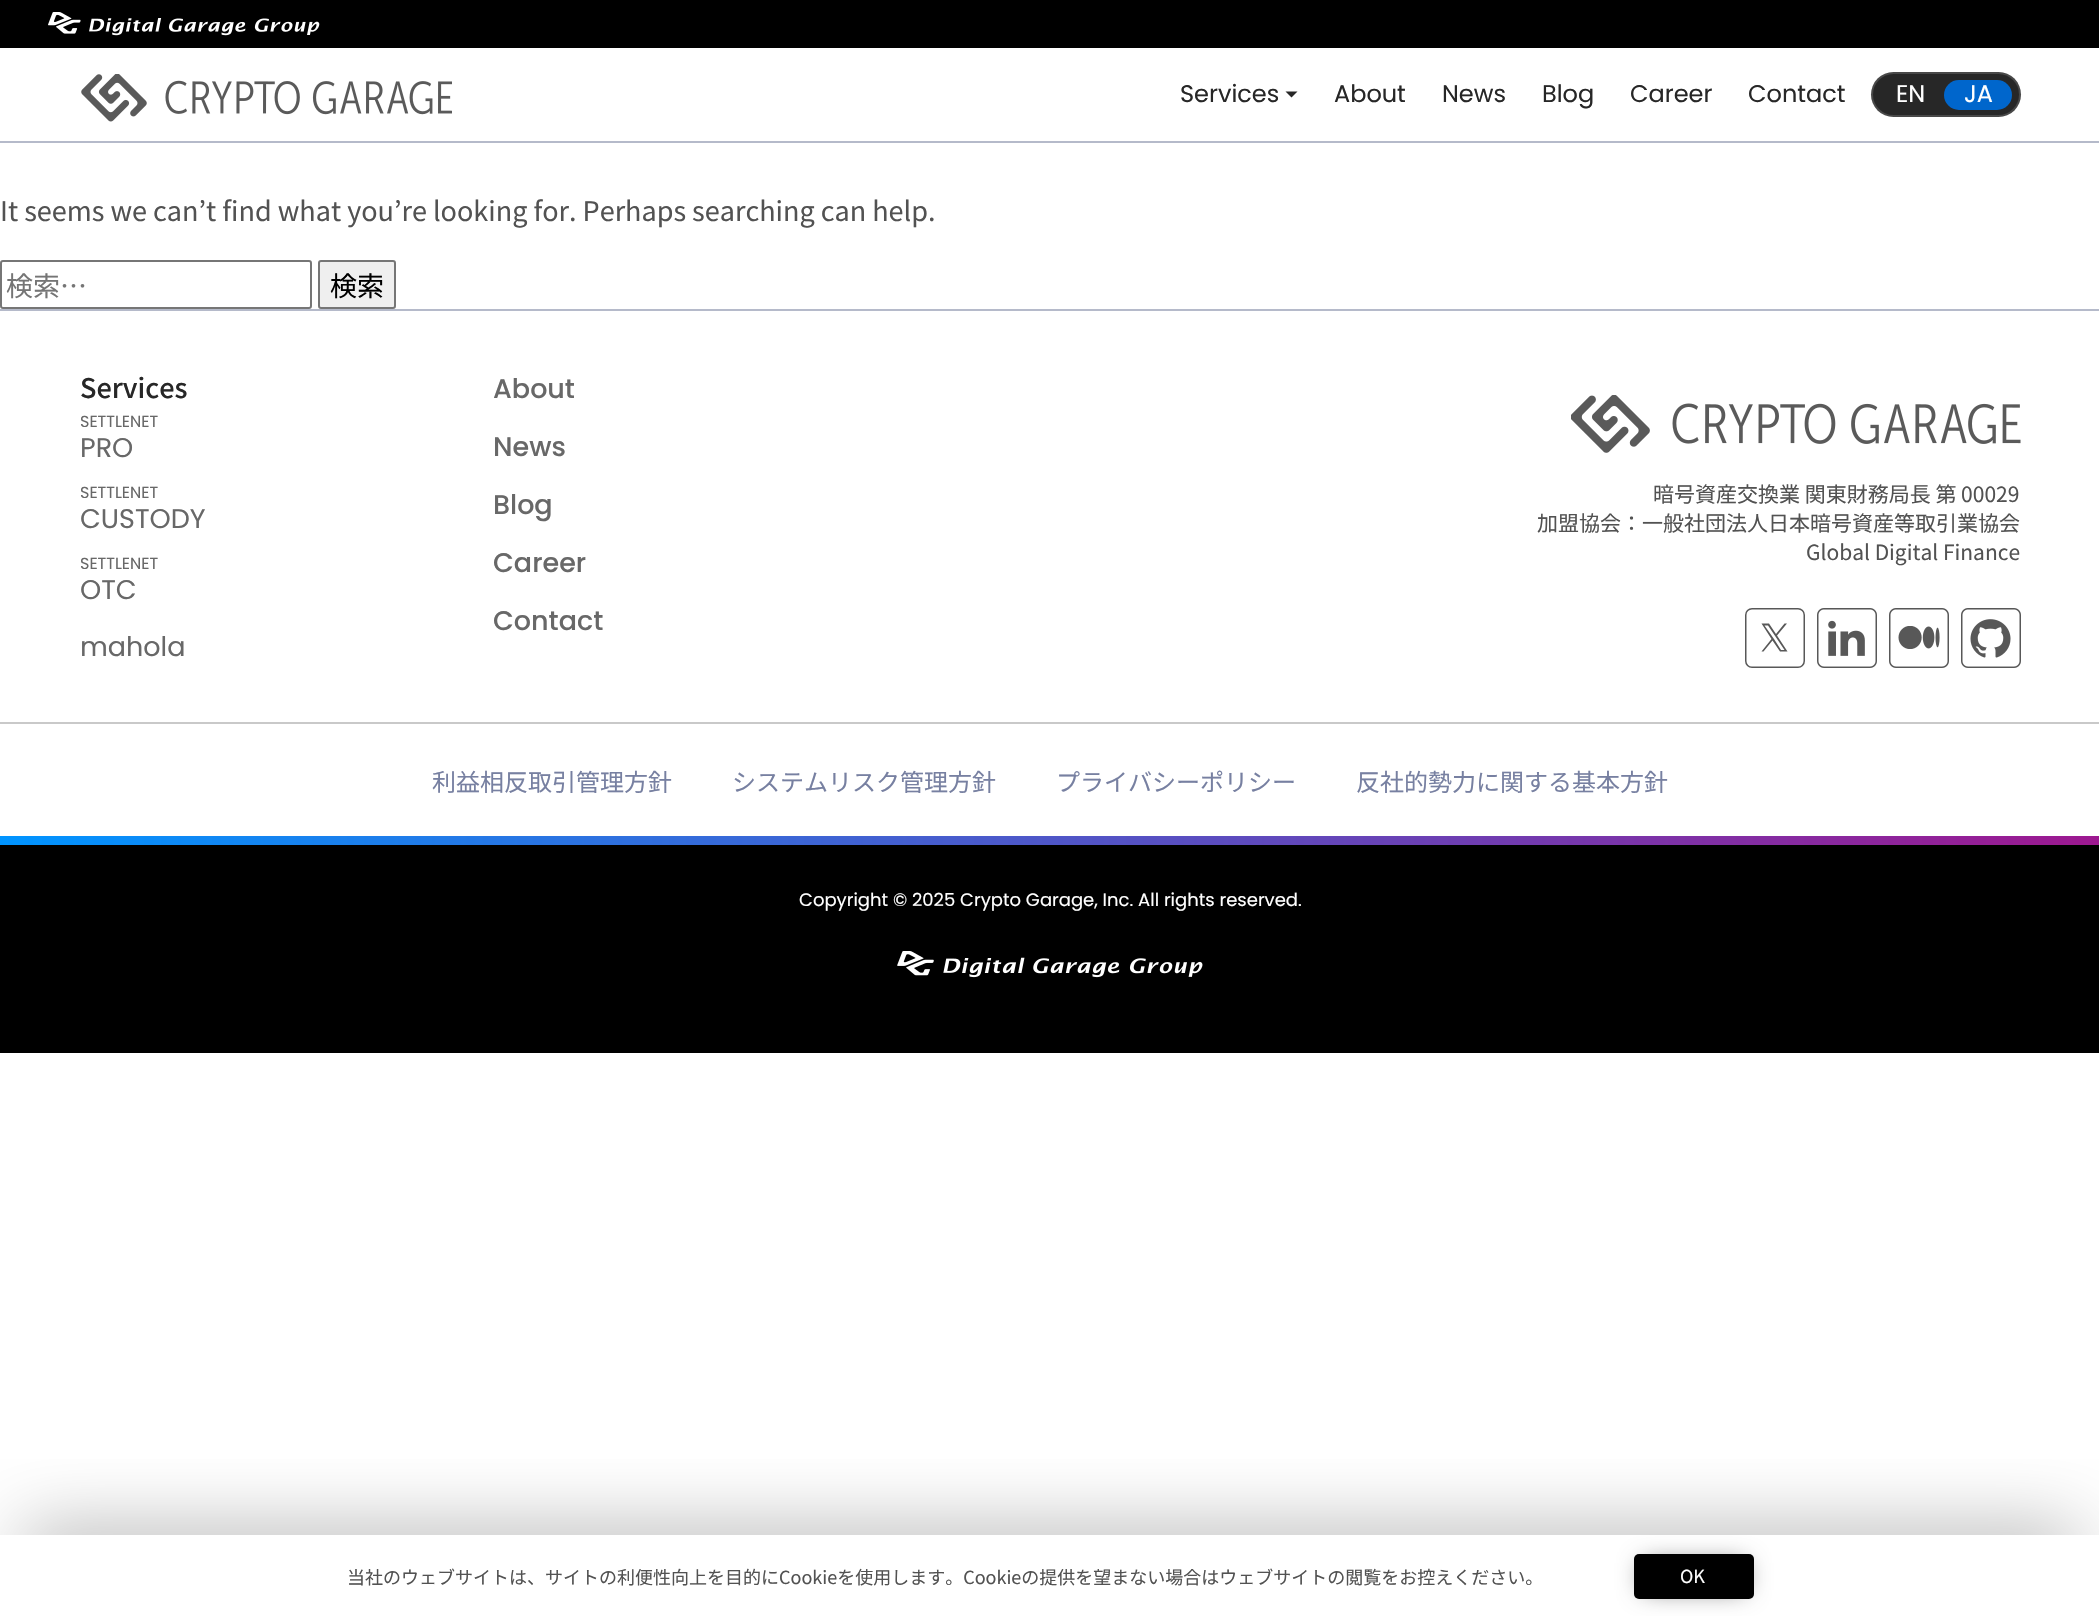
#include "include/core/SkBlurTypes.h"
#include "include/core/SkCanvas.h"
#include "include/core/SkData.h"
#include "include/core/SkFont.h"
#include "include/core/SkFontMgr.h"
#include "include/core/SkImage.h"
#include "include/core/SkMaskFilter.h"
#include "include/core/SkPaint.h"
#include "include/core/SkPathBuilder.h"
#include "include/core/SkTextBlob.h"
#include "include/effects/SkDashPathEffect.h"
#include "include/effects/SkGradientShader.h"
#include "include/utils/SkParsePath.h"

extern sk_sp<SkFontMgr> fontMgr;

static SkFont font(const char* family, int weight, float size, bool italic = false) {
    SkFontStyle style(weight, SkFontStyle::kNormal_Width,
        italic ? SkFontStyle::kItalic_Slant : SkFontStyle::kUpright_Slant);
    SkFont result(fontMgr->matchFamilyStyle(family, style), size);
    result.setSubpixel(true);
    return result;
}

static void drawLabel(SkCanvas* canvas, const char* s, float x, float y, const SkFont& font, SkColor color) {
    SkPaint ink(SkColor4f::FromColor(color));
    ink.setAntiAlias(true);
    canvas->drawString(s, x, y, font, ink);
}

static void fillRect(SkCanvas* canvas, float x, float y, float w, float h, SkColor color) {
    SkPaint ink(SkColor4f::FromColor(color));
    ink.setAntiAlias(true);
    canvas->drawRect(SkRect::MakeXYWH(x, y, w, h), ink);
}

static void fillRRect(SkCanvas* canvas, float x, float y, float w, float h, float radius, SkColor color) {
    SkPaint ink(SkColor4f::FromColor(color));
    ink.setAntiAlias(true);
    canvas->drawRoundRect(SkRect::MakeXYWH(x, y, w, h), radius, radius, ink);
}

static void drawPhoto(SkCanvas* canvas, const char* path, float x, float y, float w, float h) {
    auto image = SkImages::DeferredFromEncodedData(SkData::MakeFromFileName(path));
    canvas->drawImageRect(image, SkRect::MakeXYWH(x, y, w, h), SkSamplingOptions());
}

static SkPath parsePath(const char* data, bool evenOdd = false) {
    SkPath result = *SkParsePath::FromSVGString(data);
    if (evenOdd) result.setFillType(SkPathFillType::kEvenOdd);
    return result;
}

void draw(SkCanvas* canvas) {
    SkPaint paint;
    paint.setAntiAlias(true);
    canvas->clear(0xFFFFFFFF);
    fillRect(canvas, 0, 0, 2099, 48, 0xFF000000);
    drawPhoto(canvas, "assets/img1.png", 48, 12, 272, 24);
    fillRect(canvas, 0, 141, 2099, 2, 0xFFB5BACA);
    drawPhoto(canvas, "assets/img2.png", 81, 74, 371, 48);
    SkFont font1 = font("Poppins", 400, 24);
    drawLabel(canvas, "Services", 1180, 102, font1, 0xFF272727);
    paint.setColor(0xFF272727);
    canvas->drawPath(parsePath("M1285.5 91.5H1297.5L1291.5 97.5Z"), paint);
    drawLabel(canvas, "About", 1334, 102, font1, 0xFF272727);
    drawLabel(canvas, "News", 1442, 102, font1, 0xFF272727);
    drawLabel(canvas, "Blog", 1542, 102, font1, 0xFF272727);
    drawLabel(canvas, "Career", 1630, 102, font1, 0xFF272727);
    drawLabel(canvas, "Contact", 1748, 102, font1, 0xFF272727);
    fillRRect(canvas, 1871, 72, 150, 45, 22.5f, 0xFF272727);
    paint.setStroke(true);
    paint.setStrokeWidth(2);
    paint.setColor(0x26FFFFFF);
    canvas->drawRoundRect(SkRect::MakeXYWH(1872, 73, 148, 43), 21.5f, 21.5f, paint);
    drawLabel(canvas, "EN", 1896, 102, font1, 0xFFFFFFFF);
    fillRRect(canvas, 1944, 80, 68, 30, 15, 0xFF0066CC);
    drawLabel(canvas, "JA", 1964, 102, font1, 0xFFFFFFFF);
    SkFont font2 = font("Noto Sans JP", 400, 27);
    drawLabel(canvas, "It seems we can’t find what you’re looking for. Perhaps searching can help.", 0, 221, font2, 0xFF525252);
    paint.setColor(0xFF767676);
    canvas->drawRoundRect(SkRect::MakeXYWH(1, 261, 310, 47), 2, 2, paint);
    drawLabel(canvas, "検索…", 6, 296, font2, 0xFF757575);
    paint.setStroke(false);
    paint.setColor(0xFFEFEFEF);
    canvas->drawRoundRect(SkRect::MakeXYWH(319, 261, 76, 47), 2, 2, paint);
    paint.setStroke(true);
    paint.setColor(0xFF767676);
    canvas->drawRoundRect(SkRect::MakeXYWH(319, 261, 76, 47), 2, 2, paint);
    drawLabel(canvas, "検索", 330, 296, font2, 0xFF000000);
    fillRect(canvas, 0, 309, 2099, 2, 0xFFB5BACA);
    SkFont font3 = font("Noto Sans JP", 500, 27);
    drawLabel(canvas, "Services", 80, 398, font3, 0xFF272727);
    SkFont font4 = font("Poppins", 400, 16);
    drawLabel(canvas, "SETTLENET", 80, 427, font4, 0xFF686868);
    SkFont font5 = font("Poppins", 400, 27);
    drawLabel(canvas, "PRO", 80, 457, font5, 0xFF686868);
    drawLabel(canvas, "SETTLENET", 80, 498, font4, 0xFF686868);
    drawLabel(canvas, "CUSTODY", 80, 528, font5, 0xFF686868);
    drawLabel(canvas, "SETTLENET", 80, 569, font4, 0xFF686868);
    drawLabel(canvas, "OTC", 80, 599, font5, 0xFF686868);
    drawLabel(canvas, "mahola", 80, 656, font5, 0xFF686868);
    SkFont font6 = font("Poppins", 500, 27);
    drawLabel(canvas, "About", 493, 398, font6, 0xFF686868);
    drawLabel(canvas, "News", 493, 456, font6, 0xFF686868);
    drawLabel(canvas, "Blog", 493, 514, font6, 0xFF686868);
    drawLabel(canvas, "Career", 493, 572, font6, 0xFF686868);
    drawLabel(canvas, "Contact", 493, 630, font6, 0xFF686868);
    drawPhoto(canvas, "assets/img3.png", 1571, 395, 450, 58);
    SkFont font7 = font("Noto Sans JP", 400, 21);
    drawLabel(canvas, "暗号資産交換業 関東財務局長 第 00029", 1653, 502, font7, 0xFF525252);
    drawLabel(canvas, "加盟協会：一般社団法人日本暗号資産等取引業協会", 1537, 531, font7, 0xFF525252);
    drawLabel(canvas, "Global Digital Finance", 1806, 560, font7, 0xFF525252);
    paint.setStrokeWidth(1.5f);
    paint.setColor(0xFF585858);
    canvas->drawRoundRect(SkRect::MakeXYWH(1745.75f, 608.75f, 58.5f, 58.5f), 6.25f, 6.25f, paint);
    paint.setStroke(false);
    canvas->drawPath(parsePath("M1777 635.5L1787 623.5H1784.5L1776 634L1769 623.5H1761.5L1771.5 639L1761.5 651.5H1763.5L1772.5 640.5L1780 651.5H1787.5ZM1774 639L1764.5 625.5H1768L1784.5 650H1781Z"), paint);
    drawPhoto(canvas, "assets/img4.png", 1817, 608, 60, 60);
    drawPhoto(canvas, "assets/img5.png", 1889, 608, 60, 60);
    drawPhoto(canvas, "assets/img6.png", 1961, 608, 60, 60);
    fillRect(canvas, 0, 722, 2099, 2, 0xFFC9C9C9);
    SkFont font8 = font("Noto Sans JP", 400, 24);
    drawLabel(canvas, "利益相反取引管理方針", 432, 791, font8, 0xFF7780A1);
    drawLabel(canvas, "システムリスク管理方針", 732, 791, font8, 0xFF7780A1);
    drawLabel(canvas, "プライバシーポリシー", 1056, 791, font8, 0xFF7780A1);
    drawLabel(canvas, "反社的勢力に関する基本方針", 1356, 791, font8, 0xFF7780A1);
    fillRect(canvas, 0, 845, 2099, 208, 0xFF000000);
    {
        const SkColor colors[] = {0xFF0094FF, 0xFF9D1890};
        const float stops[] = {0, 1};
        const SkPoint ends[] = {{0, 840}, {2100, 840}};
        paint.setShader(SkGradientShader::MakeLinear(ends, colors, stops, 2, SkTileMode::kClamp));
        paint.setAlpha(255);
    }
    canvas->drawRect(SkRect::MakeXYWH(0, 836, 2099, 9), paint);
    SkFont font9 = font("Poppins", 400, 18);
    drawLabel(canvas, "Copyright © 2025 Crypto Garage, Inc. All rights reserved.", 799, 906, font9, 0xFFFFFFFF);
    drawPhoto(canvas, "assets/img7.png", 897, 951, 306, 27);
    canvas->save();
    canvas->clipRect(SkRect::MakeXYWH(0, 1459, 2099, 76));
    paint.setShader(nullptr);
    paint.setColor(0xFF949494);
    paint.setMaskFilter(SkMaskFilter::MakeBlur(kNormal_SkBlurStyle, 37.5f));
    canvas->drawRect(SkRect::MakeXYWH(23, 1535, 2055, 37), paint);
    paint.setMaskFilter(nullptr);
    canvas->restore();
    SkFont font10 = font("Noto Sans JP", 400, 18);
    drawLabel(canvas, "当社のウェブサイトは、サイトの利便性向上を目的にCookieを使用します。Cookieの提供を望まない場合はウェブサイトの閲覧をお控えください。", 347, 1584, font10, 0xFF525252);
    paint.setColor(0x99000000);
    paint.setMaskFilter(SkMaskFilter::MakeBlur(kNormal_SkBlurStyle, 12));
    canvas->drawRect(SkRect::MakeXYWH(1643, 1563, 102, 27), paint);
    paint.setMaskFilter(nullptr);
    fillRRect(canvas, 1634, 1554, 120, 45, 5, 0xFF000000);
    drawLabel(canvas, "OK", 1680, 1583, font10, 0xFFFFFFFF);
}
